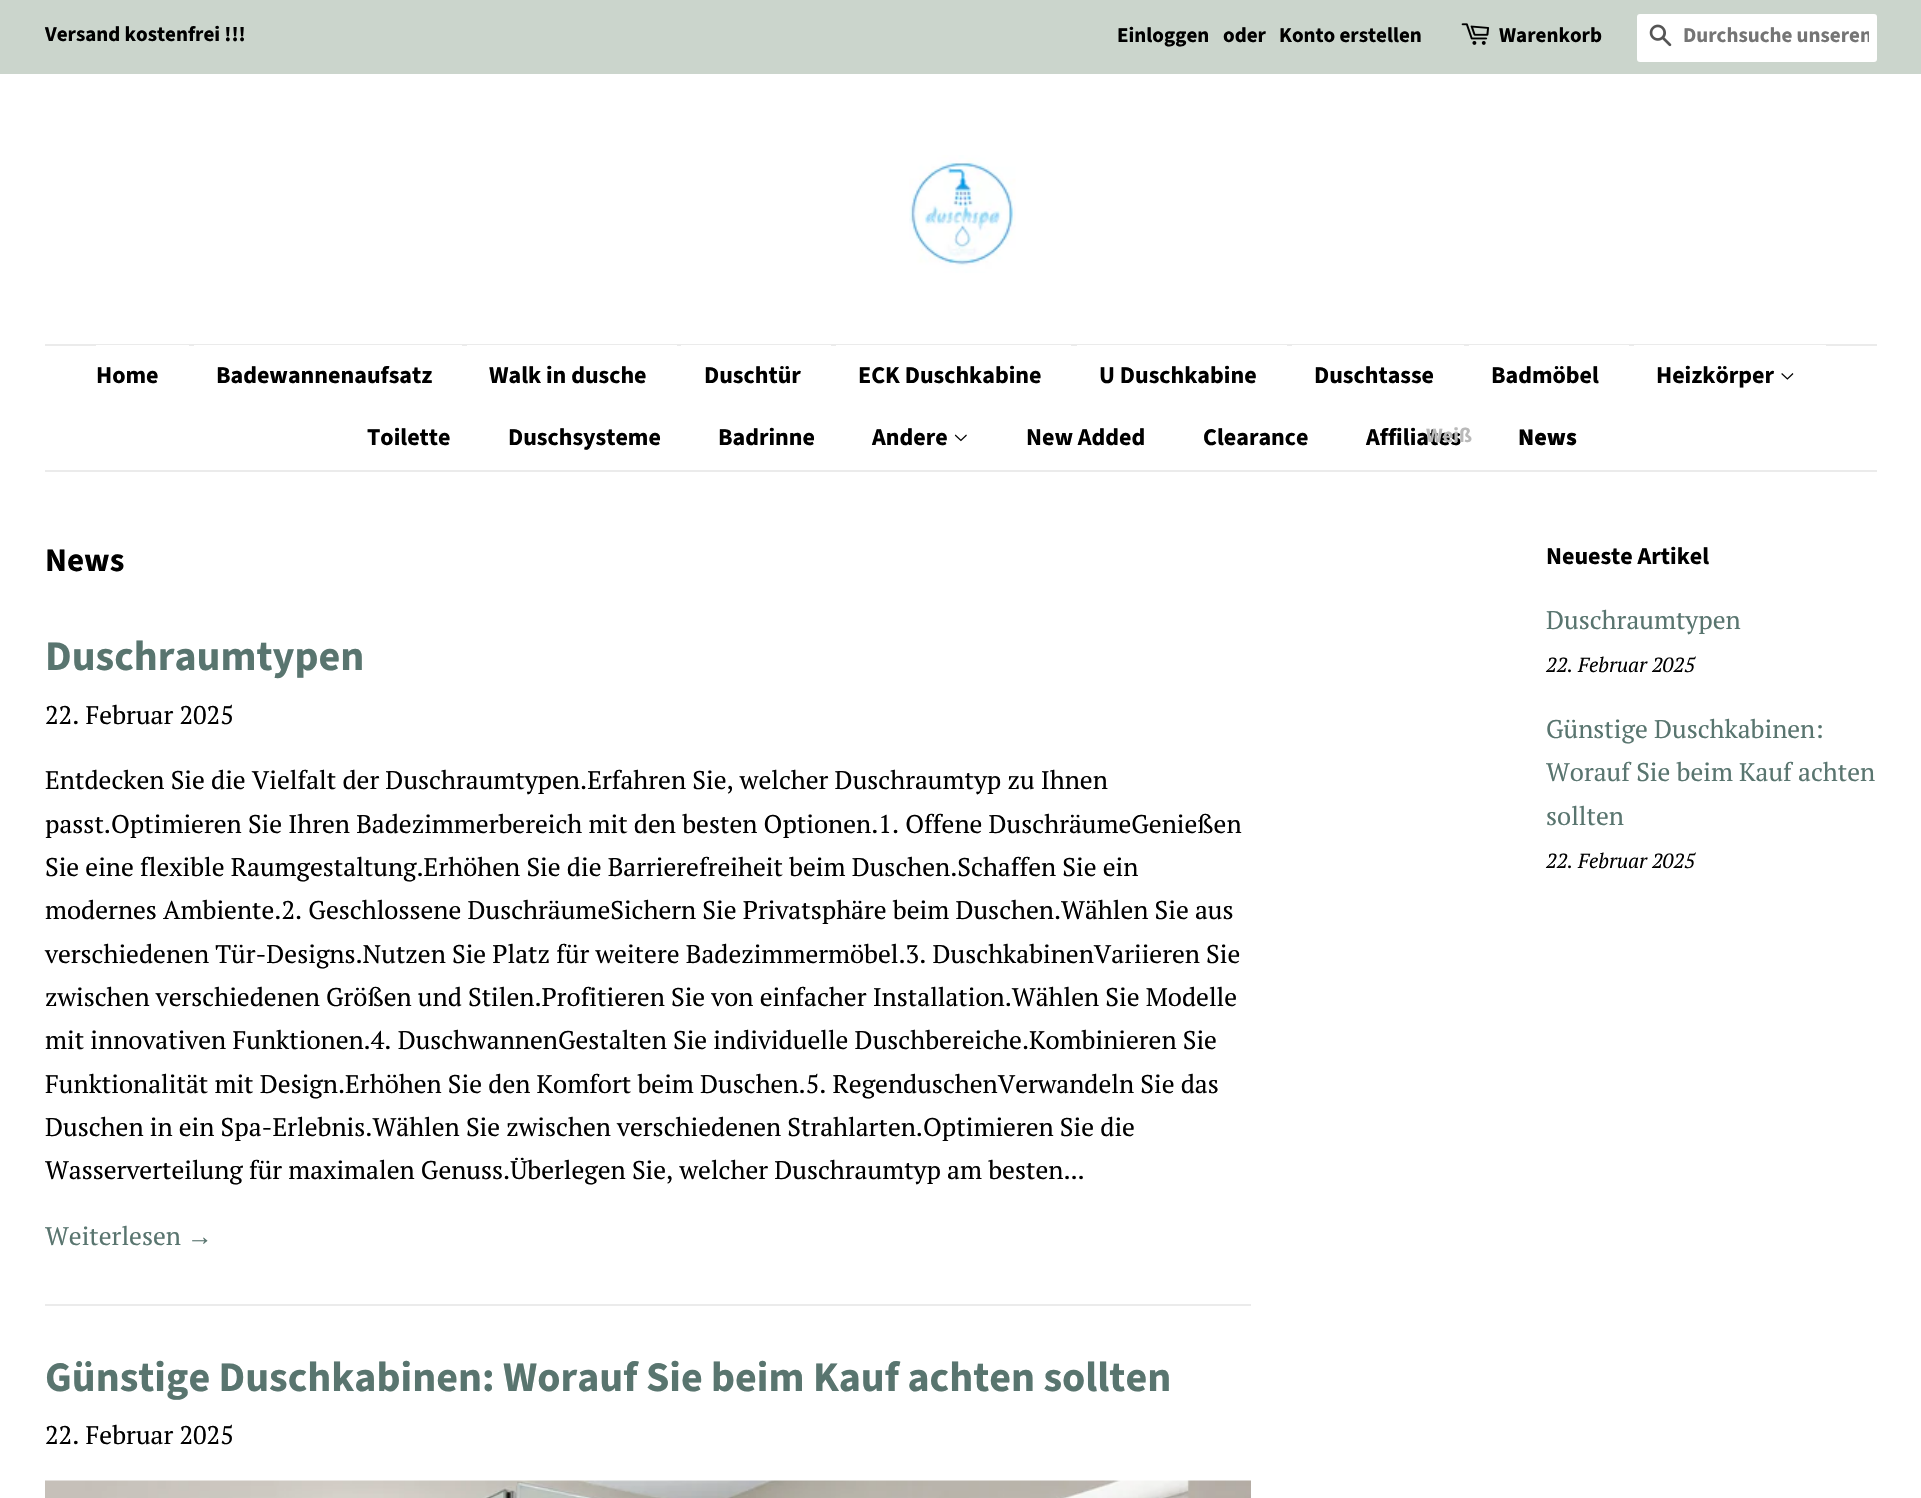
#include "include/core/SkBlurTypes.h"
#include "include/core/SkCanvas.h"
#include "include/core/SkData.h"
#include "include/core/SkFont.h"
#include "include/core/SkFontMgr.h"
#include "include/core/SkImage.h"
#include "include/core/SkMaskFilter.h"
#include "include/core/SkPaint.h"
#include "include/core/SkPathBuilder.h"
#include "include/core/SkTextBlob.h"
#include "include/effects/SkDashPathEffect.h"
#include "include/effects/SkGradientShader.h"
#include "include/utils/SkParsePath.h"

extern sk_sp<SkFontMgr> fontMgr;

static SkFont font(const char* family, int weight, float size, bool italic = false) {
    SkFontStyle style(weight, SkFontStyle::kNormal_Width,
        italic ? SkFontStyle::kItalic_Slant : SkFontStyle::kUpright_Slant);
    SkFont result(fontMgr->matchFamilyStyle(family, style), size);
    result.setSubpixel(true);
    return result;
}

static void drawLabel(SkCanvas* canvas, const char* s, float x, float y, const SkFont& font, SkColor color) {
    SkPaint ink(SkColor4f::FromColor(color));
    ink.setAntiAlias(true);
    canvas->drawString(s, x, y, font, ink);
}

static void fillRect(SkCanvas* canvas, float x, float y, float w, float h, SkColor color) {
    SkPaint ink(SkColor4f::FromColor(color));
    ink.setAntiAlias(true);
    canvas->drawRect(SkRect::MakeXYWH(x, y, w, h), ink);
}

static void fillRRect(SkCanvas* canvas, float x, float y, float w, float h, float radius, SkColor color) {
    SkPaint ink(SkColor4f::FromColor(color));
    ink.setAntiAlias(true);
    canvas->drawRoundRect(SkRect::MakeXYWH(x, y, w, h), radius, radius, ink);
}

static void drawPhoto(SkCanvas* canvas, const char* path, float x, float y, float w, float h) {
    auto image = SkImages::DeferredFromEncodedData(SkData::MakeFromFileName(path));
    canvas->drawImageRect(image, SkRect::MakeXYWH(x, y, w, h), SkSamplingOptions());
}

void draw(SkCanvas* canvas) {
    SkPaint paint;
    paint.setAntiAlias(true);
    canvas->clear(0xFFFFFFFF);
    fillRect(canvas, 0, 0, 1921, 74, 0xFFCBD5CC);
    SkFont font1 = font("Source Sans Pro", 700, 21);
    drawLabel(canvas, "Versand kostenfrei !!!", 45, 41, font1, 0xFF000000);
    drawLabel(canvas, "Einloggen", 1117, 42, font1, 0xFF000000);
    drawLabel(canvas, "oder", 1223, 42, font1, 0xFF000000);
    drawLabel(canvas, "Konto erstellen", 1279, 42, font1, 0xFF000000);
    drawPhoto(canvas, "assets/img1.png", 1461, 23, 29, 22);
    drawLabel(canvas, "Warenkorb", 1499, 42, font1, 0xFF000000);
    fillRRect(canvas, 1637, 14, 240, 48, 3, 0xFFFFFFFF);
    drawPhoto(canvas, "assets/img2.png", 1649, 24, 23, 23);
    canvas->save();
    canvas->clipRect(SkRect::MakeXYWH(1683, 21, 186, 30));
    drawLabel(canvas, "Durchsuche unseren", 1683, 42, font1, 0xFF757575);
    canvas->restore();
    drawPhoto(canvas, "assets/img3.png", 909, 155, 107, 118);
    fillRect(canvas, 45, 344, 1832, 2, 0xFFEBEBEB);
    fillRect(canvas, 45, 470, 1832, 2, 0xFFEBEBEB);
    fillRect(canvas, 194, 345, 268, 1, 0xFFFFFFFF);
    SkFont font2 = font("Source Sans Pro", 700, 24);
    drawLabel(canvas, "Badewannenaufsatz", 216, 383, font2, 0xFF000000);
    fillRect(canvas, 467, 345, 210, 1, 0xFFFFFFFF);
    drawLabel(canvas, "Walk in dusche", 489, 383, font2, 0xFF000000);
    fillRect(canvas, 681, 345, 150, 1, 0xFFFFFFFF);
    drawLabel(canvas, "Duschtür", 704, 383, font2, 0xFF000000);
    fillRect(canvas, 836, 345, 235, 1, 0xFFFFFFFF);
    drawLabel(canvas, "ECK Duschkabine", 858, 383, font2, 0xFF000000);
    fillRect(canvas, 1077, 345, 210, 1, 0xFFFFFFFF);
    drawLabel(canvas, "U Duschkabine", 1099, 383, font2, 0xFF000000);
    fillRect(canvas, 1634, 345, 192, 1, 0xFFFFFFFF);
    drawLabel(canvas, "Heizkörper", 1656, 383, font2, 0xFF000000);
    drawPhoto(canvas, "assets/img4.png", 1781, 373, 13, 7);
    drawLabel(canvas, "Affiliates", 1366, 445, font2, 0xFF000000);
    SkFont font3 = font("Source Sans Pro", 700, 20.5f);
    drawLabel(canvas, "Weiß", 1426, 442, font3, 0xFFB9B9B9);
    fillRect(canvas, 96, 345, 93, 1, 0xFFFFFFFF);
    drawLabel(canvas, "Home", 96, 383, font2, 0xFF000000);
    fillRect(canvas, 1292, 345, 172, 1, 0xFFFFFFFF);
    drawLabel(canvas, "Duschtasse", 1314, 383, font2, 0xFF000000);
    fillRect(canvas, 1469, 345, 160, 1, 0xFFFFFFFF);
    drawLabel(canvas, "Badmöbel", 1491, 383, font2, 0xFF000000);
    drawLabel(canvas, "Toilette", 367, 445, font2, 0xFF000000);
    drawLabel(canvas, "Duschsysteme", 508, 445, font2, 0xFF000000);
    drawLabel(canvas, "Badrinne", 718, 445, font2, 0xFF000000);
    drawLabel(canvas, "Andere", 872, 445, font2, 0xFF000000);
    drawPhoto(canvas, "assets/img5.png", 954, 434, 13, 8);
    drawLabel(canvas, "New Added", 1026, 445, font2, 0xFF000000);
    drawLabel(canvas, "Clearance", 1203, 445, font2, 0xFF000000);
    SkFont font4 = font("Source Sans Pro", 900, 24);
    drawLabel(canvas, "News", 1518, 445, font4, 0xFF000000);
    SkFont font5 = font("Source Sans Pro", 700, 33);
    drawLabel(canvas, "News", 45, 571, font5, 0xFF000000);
    SkFont font6 = font("Source Sans Pro", 700, 42);
    drawLabel(canvas, "Duschraumtypen", 45, 670, font6, 0xFF59756F);
    SkFont font7 = font("PT Serif", 400, 25.5f);
    drawLabel(canvas, "22. Februar 2025", 45, 724, font7, 0xFF000000);
    drawLabel(canvas, "Entdecken Sie die Vielfalt der Duschraumtypen.Erfahren Sie, welcher Duschraumtyp zu Ihnen", 45, 789, font7, 0xFF000000);
    drawLabel(canvas, "passt.Optimieren Sie Ihren Badezimmerbereich mit den besten Optionen.1. Offene DuschräumeGenießen", 45, 833, font7, 0xFF000000);
    drawLabel(canvas, "Sie eine flexible Raumgestaltung.Erhöhen Sie die Barrierefreiheit beim Duschen.Schaffen Sie ein", 45, 876, font7, 0xFF000000);
    drawLabel(canvas, "modernes Ambiente.2. Geschlossene DuschräumeSichern Sie Privatsphäre beim Duschen.Wählen Sie aus", 45, 919, font7, 0xFF000000);
    drawLabel(canvas, "verschiedenen Tür-Designs.Nutzen Sie Platz für weitere Badezimmermöbel.3. DuschkabinenVariieren Sie", 45, 963, font7, 0xFF000000);
    drawLabel(canvas, "zwischen verschiedenen Größen und Stilen.Profitieren Sie von einfacher Installation.Wählen Sie Modelle", 45, 1006, font7, 0xFF000000);
    drawLabel(canvas, "mit innovativen Funktionen.4. DuschwannenGestalten Sie individuelle Duschbereiche.Kombinieren Sie", 45, 1049, font7, 0xFF000000);
    drawLabel(canvas, "Funktionalität mit Design.Erhöhen Sie den Komfort beim Duschen.5. RegenduschenVerwandeln Sie das", 45, 1093, font7, 0xFF000000);
    drawLabel(canvas, "Duschen in ein Spa-Erlebnis.Wählen Sie zwischen verschiedenen Strahlarten.Optimieren Sie die", 45, 1136, font7, 0xFF000000);
    drawLabel(canvas, "Wasserverteilung für maximalen Genuss.Überlegen Sie, welcher Duschraumtyp am besten...", 45, 1179, font7, 0xFF000000);
    drawLabel(canvas, "Weiterlesen", 45, 1245, font7, 0xFF59756F);
    SkFont font8 = font("Liberation Serif", 400, 25.5f);
    drawLabel(canvas, "→", 187, 1245, font8, 0xFF59756F);
    fillRect(canvas, 45, 1304, 1206, 2, 0xFFEBEBEB);
    drawLabel(canvas, "Günstige Duschkabinen: Worauf Sie beim Kauf achten sollten", 45, 1391, font6, 0xFF59756F);
    drawLabel(canvas, "22. Februar 2025", 45, 1444, font7, 0xFF000000);
    drawPhoto(canvas, "assets/img6.png", 45, 1480, 1206, 18);
    drawLabel(canvas, "Neueste Artikel", 1546, 564, font2, 0xFF000000);
    drawLabel(canvas, "Duschraumtypen", 1546, 629, font7, 0xFF59756F);
    SkFont font9 = font("PT Serif", 400, 20.5f, true);
    drawLabel(canvas, "22. Februar 2025", 1546, 672, font9, 0xFF000000);
    drawLabel(canvas, "Günstige Duschkabinen:", 1546, 738, font7, 0xFF59756F);
    drawLabel(canvas, "Worauf Sie beim Kauf achten", 1546, 781, font7, 0xFF59756F);
    drawLabel(canvas, "sollten", 1546, 825, font7, 0xFF59756F);
    drawLabel(canvas, "22. Februar 2025", 1546, 868, font9, 0xFF000000);
}
